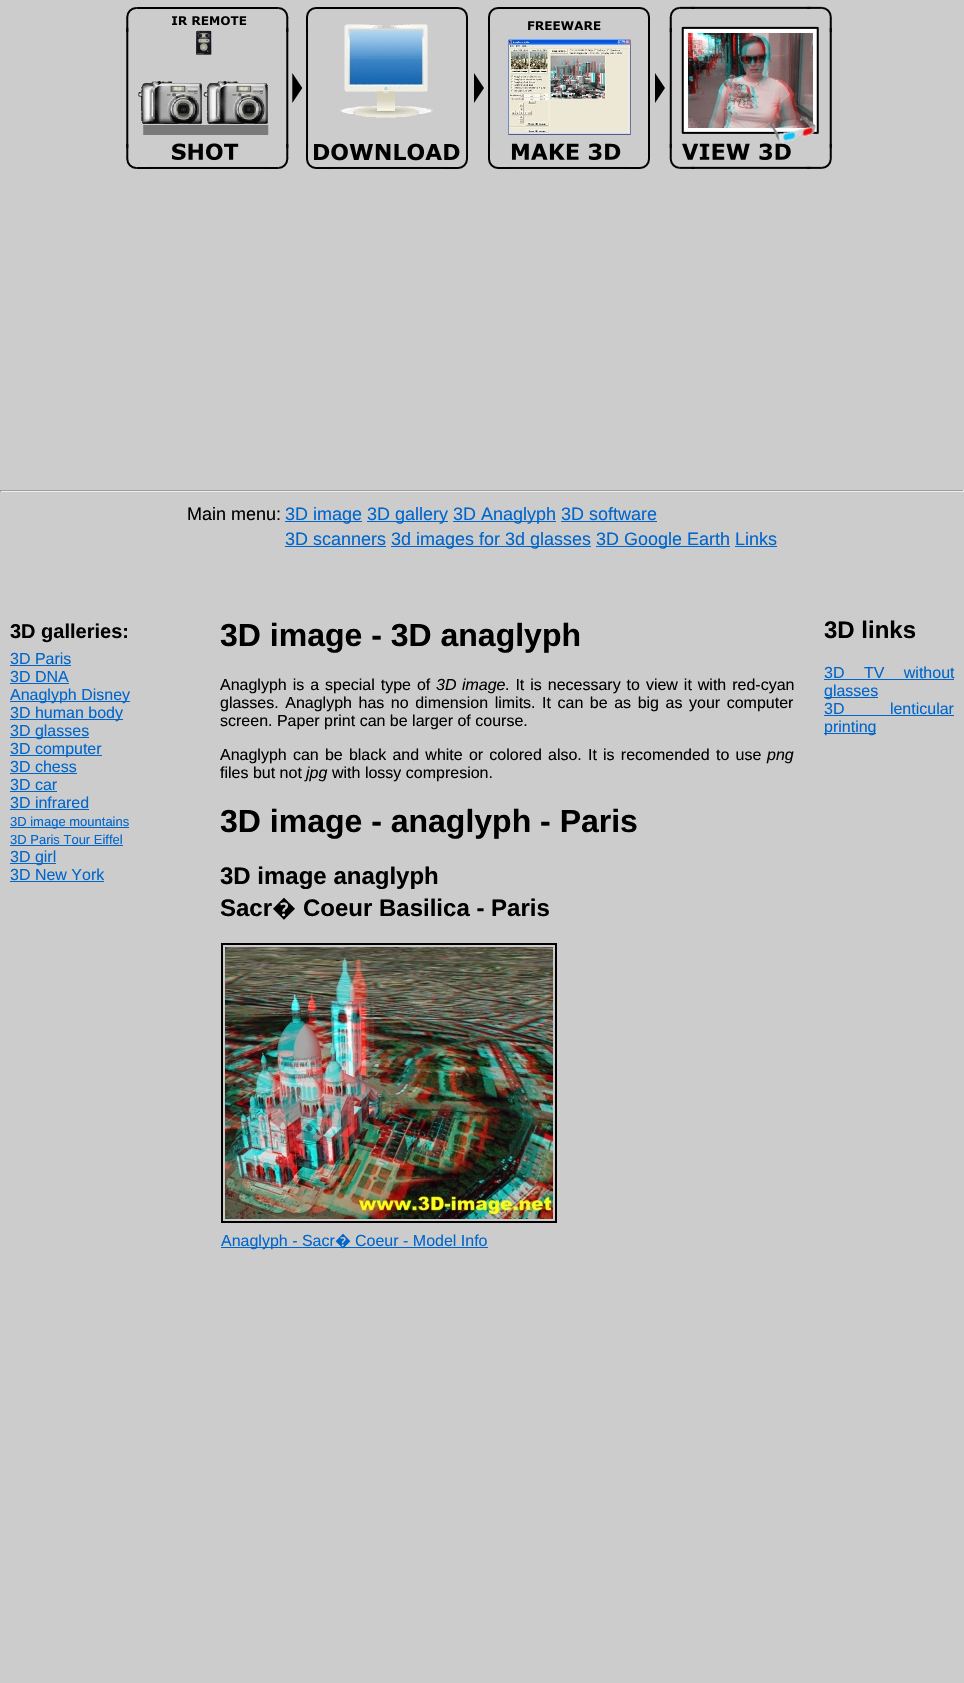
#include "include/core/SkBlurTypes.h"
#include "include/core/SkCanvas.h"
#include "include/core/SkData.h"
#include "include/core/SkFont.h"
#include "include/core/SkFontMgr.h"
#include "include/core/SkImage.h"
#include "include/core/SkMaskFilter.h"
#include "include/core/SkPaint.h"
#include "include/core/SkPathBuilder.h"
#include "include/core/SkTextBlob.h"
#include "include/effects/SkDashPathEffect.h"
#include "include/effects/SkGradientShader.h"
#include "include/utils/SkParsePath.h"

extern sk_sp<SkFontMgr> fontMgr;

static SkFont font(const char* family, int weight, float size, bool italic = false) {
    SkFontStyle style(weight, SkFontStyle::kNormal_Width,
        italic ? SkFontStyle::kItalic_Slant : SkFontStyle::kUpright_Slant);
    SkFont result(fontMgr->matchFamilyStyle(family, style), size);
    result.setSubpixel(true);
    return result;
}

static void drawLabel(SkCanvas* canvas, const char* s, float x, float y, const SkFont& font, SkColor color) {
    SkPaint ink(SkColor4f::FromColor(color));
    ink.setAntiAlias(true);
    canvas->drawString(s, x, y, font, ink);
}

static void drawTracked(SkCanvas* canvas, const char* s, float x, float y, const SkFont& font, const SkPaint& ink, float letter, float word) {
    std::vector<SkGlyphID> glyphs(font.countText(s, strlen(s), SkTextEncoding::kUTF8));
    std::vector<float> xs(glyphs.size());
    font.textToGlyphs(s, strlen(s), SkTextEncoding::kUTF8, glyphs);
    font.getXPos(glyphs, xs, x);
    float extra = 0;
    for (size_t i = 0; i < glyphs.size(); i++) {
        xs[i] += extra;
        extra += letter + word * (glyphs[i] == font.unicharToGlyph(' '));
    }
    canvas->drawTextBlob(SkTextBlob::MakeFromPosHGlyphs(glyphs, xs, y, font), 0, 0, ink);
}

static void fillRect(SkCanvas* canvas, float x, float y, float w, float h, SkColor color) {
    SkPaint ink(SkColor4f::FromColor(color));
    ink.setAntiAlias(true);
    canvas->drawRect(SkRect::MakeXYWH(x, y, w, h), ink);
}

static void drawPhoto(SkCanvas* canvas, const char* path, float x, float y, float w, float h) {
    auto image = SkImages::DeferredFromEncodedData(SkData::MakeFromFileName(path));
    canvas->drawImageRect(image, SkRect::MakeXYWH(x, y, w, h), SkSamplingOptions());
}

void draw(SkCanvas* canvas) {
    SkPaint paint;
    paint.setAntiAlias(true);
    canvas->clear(0xFFCCCCCC);
    drawPhoto(canvas, "assets/img1.png", 126, 6, 706, 163);
    fillRect(canvas, 0, 490, 964, 1, 0xFF9F9F9F);
    fillRect(canvas, 963, 490, 1, 2, 0xFFEEEEEE);
    fillRect(canvas, 0, 491, 964, 1, 0xFFEEEEEE);
    fillRect(canvas, 0, 490, 1, 2, 0xFF9F9F9F);
    SkFont font1 = font("Liberation Sans", 400, 18);
    drawLabel(canvas, "Main menu:", 187, 520, font1, 0xFF000000);
    fillRect(canvas, 285, 521, 77, 1, 0xFF0066CB);
    drawLabel(canvas, "3D image", 285, 520, font1, 0xFF0066CB);
    fillRect(canvas, 367, 521, 81, 1, 0xFF0066CB);
    drawLabel(canvas, "3D gallery", 367, 520, font1, 0xFF0066CB);
    fillRect(canvas, 453, 521, 103, 1, 0xFF0066CB);
    drawLabel(canvas, "3D Anaglyph 3D software", 453, 520, font1, 0xFF0066CB);
    fillRect(canvas, 561, 521, 96, 1, 0xFF0066CB);
    drawLabel(canvas, "3D scanners", 285, 545, font1, 0xFF0066CB);
    fillRect(canvas, 285, 546, 101, 1, 0xFF0066CB);
    fillRect(canvas, 391, 546, 200, 1, 0xFF0066CB);
    drawLabel(canvas, "3d images for 3d glasses", 391, 545, font1, 0xFF0066CB);
    fillRect(canvas, 596, 546, 134, 1, 0xFF0066CB);
    drawLabel(canvas, "3D Google Earth Links", 596, 545, font1, 0xFF0066CB);
    fillRect(canvas, 735, 546, 42, 1, 0xFF0066CB);
    SkFont font2 = font("Liberation Sans", 700, 20);
    drawLabel(canvas, "3D galleries:", 10, 638, font2, 0xFF000000);
    SkFont font3 = font("Liberation Sans", 400, 16);
    drawLabel(canvas, "3D Paris", 10, 664, font3, 0xFF0066CB);
    fillRect(canvas, 10, 665, 61, 1, 0xFF0066CB);
    drawLabel(canvas, "3D DNA", 10, 682, font3, 0xFF0066CB);
    fillRect(canvas, 10, 683, 59, 1, 0xFF0066CB);
    fillRect(canvas, 10, 701, 120, 1, 0xFF0066CB);
    drawLabel(canvas, "Anaglyph Disney", 10, 700, font3, 0xFF0066CB);
    fillRect(canvas, 10, 719, 113, 1, 0xFF0066CB);
    drawLabel(canvas, "3D human body", 10, 718, font3, 0xFF0066CB);
    fillRect(canvas, 10, 737, 79, 1, 0xFF0066CB);
    drawLabel(canvas, "3D glasses", 10, 736, font3, 0xFF0066CB);
    fillRect(canvas, 10, 755, 92, 1, 0xFF0066CB);
    drawLabel(canvas, "3D computer", 10, 754, font3, 0xFF0066CB);
    drawLabel(canvas, "3D chess", 10, 772, font3, 0xFF0066CB);
    fillRect(canvas, 10, 773, 67, 1, 0xFF0066CB);
    drawLabel(canvas, "3D car", 10, 790, font3, 0xFF0066CB);
    fillRect(canvas, 10, 791, 47, 1, 0xFF0066CB);
    drawLabel(canvas, "3D infrared", 10, 808, font3, 0xFF0066CB);
    fillRect(canvas, 10, 809, 79, 1, 0xFF0066CB);
    fillRect(canvas, 10, 827, 119, 1, 0xFF0066CB);
    SkFont font4 = font("Liberation Sans", 400, 13);
    drawLabel(canvas, "3D image mountains", 10, 826, font4, 0xFF0066CB);
    drawLabel(canvas, "3D Paris Tour Eiffel", 10, 844, font4, 0xFF0066CB);
    fillRect(canvas, 10, 845, 113, 1, 0xFF0066CB);
    fillRect(canvas, 10, 863, 46, 1, 0xFF0066CB);
    drawLabel(canvas, "3D girl", 10, 862, font3, 0xFF0066CB);
    drawLabel(canvas, "3D New York", 10, 880, font3, 0xFF0066CB);
    fillRect(canvas, 10, 881, 94, 1, 0xFF0066CB);
    SkFont font5 = font("Liberation Sans", 700, 32);
    drawLabel(canvas, "3D image - 3D anaglyph", 220, 646, font5, 0xFF000000);
    paint.setColor(0xFF000000);
    drawTracked(canvas, "Anaglyph is a special type of", 220, 690, font3, paint, 0, 1.5f);
    SkFont font6 = font("Liberation Sans", 400, 16, true);
    drawTracked(canvas, "3D image", 436, 690, font6, paint, 0, 1);
    drawTracked(canvas, ". It is necessary to view it with red-cyan", 505, 690, font3, paint, 0, 1.5f);
    drawTracked(canvas, "glasses. Anaglyph has no dimension limits. It can be as big as your computer", 220, 708, font3, paint, 0, 2.1f);
    drawLabel(canvas, "screen. Paper print can be larger of course.", 220, 726, font3, 0xFF000000);
    drawTracked(canvas, "Anaglyph can be black and white or colored also. It is recomended to use", 220, 760, font3, paint, 0, 1.75f);
    drawLabel(canvas, "png", 767, 760, font6, 0xFF000000);
    drawLabel(canvas, "files but not", 220, 778, font3, 0xFF000000);
    drawLabel(canvas, "jpg", 306, 778, font6, 0xFF000000);
    drawLabel(canvas, "with lossy compresion.", 332, 778, font3, 0xFF000000);
    drawLabel(canvas, "3D image - anaglyph - Paris", 220, 832, font5, 0xFF000000);
    SkFont font7 = font("Liberation Sans", 700, 24);
    drawLabel(canvas, "3D image anaglyph", 220, 884, font7, 0xFF000000);
    drawLabel(canvas, "Sacr", 220, 916, font7, 0xFF000000);
    SkFont font8 = font("Noto Sans", 700, 24);
    drawLabel(canvas, "�", 272, 916, font8, 0xFF000000);
    drawLabel(canvas, "Coeur Basilica - Paris", 303, 916, font7, 0xFF000000);
    paint.setStroke(true);
    paint.setStrokeWidth(2);
    canvas->drawRect(SkRect::MakeXYWH(222, 944, 334, 278), paint);
    drawPhoto(canvas, "assets/img2.png", 225, 947, 328, 272);
    fillRect(canvas, 221, 1247, 267, 1, 0xFF0066CB);
    drawLabel(canvas, "Anaglyph - Sacr", 221, 1246, font3, 0xFF0066CB);
    SkFont font9 = font("Noto Sans", 400, 16);
    drawLabel(canvas, "�", 335, 1246, font9, 0xFF0066CB);
    drawLabel(canvas, "Coeur - Model Info", 355, 1246, font3, 0xFF0066CB);
    drawLabel(canvas, "3D links", 824, 638, font7, 0xFF000000);
    paint.setStroke(false);
    paint.setColor(0xFF0066CB);
    drawTracked(canvas, "3D TV without", 824, 678, font3, paint, 0, 15);
    fillRect(canvas, 824, 679, 130, 1, 0xFF0066CB);
    fillRect(canvas, 824, 697, 54, 1, 0xFF0066CB);
    drawLabel(canvas, "glasses", 824, 696, font3, 0xFF0066CB);
    drawTracked(canvas, "3D lenticular", 824, 714, font3, paint, 0, 41);
    fillRect(canvas, 824, 715, 130, 1, 0xFF0066CB);
    fillRect(canvas, 824, 733, 52, 1, 0xFF0066CB);
    drawLabel(canvas, "printing", 824, 732, font3, 0xFF0066CB);
}
